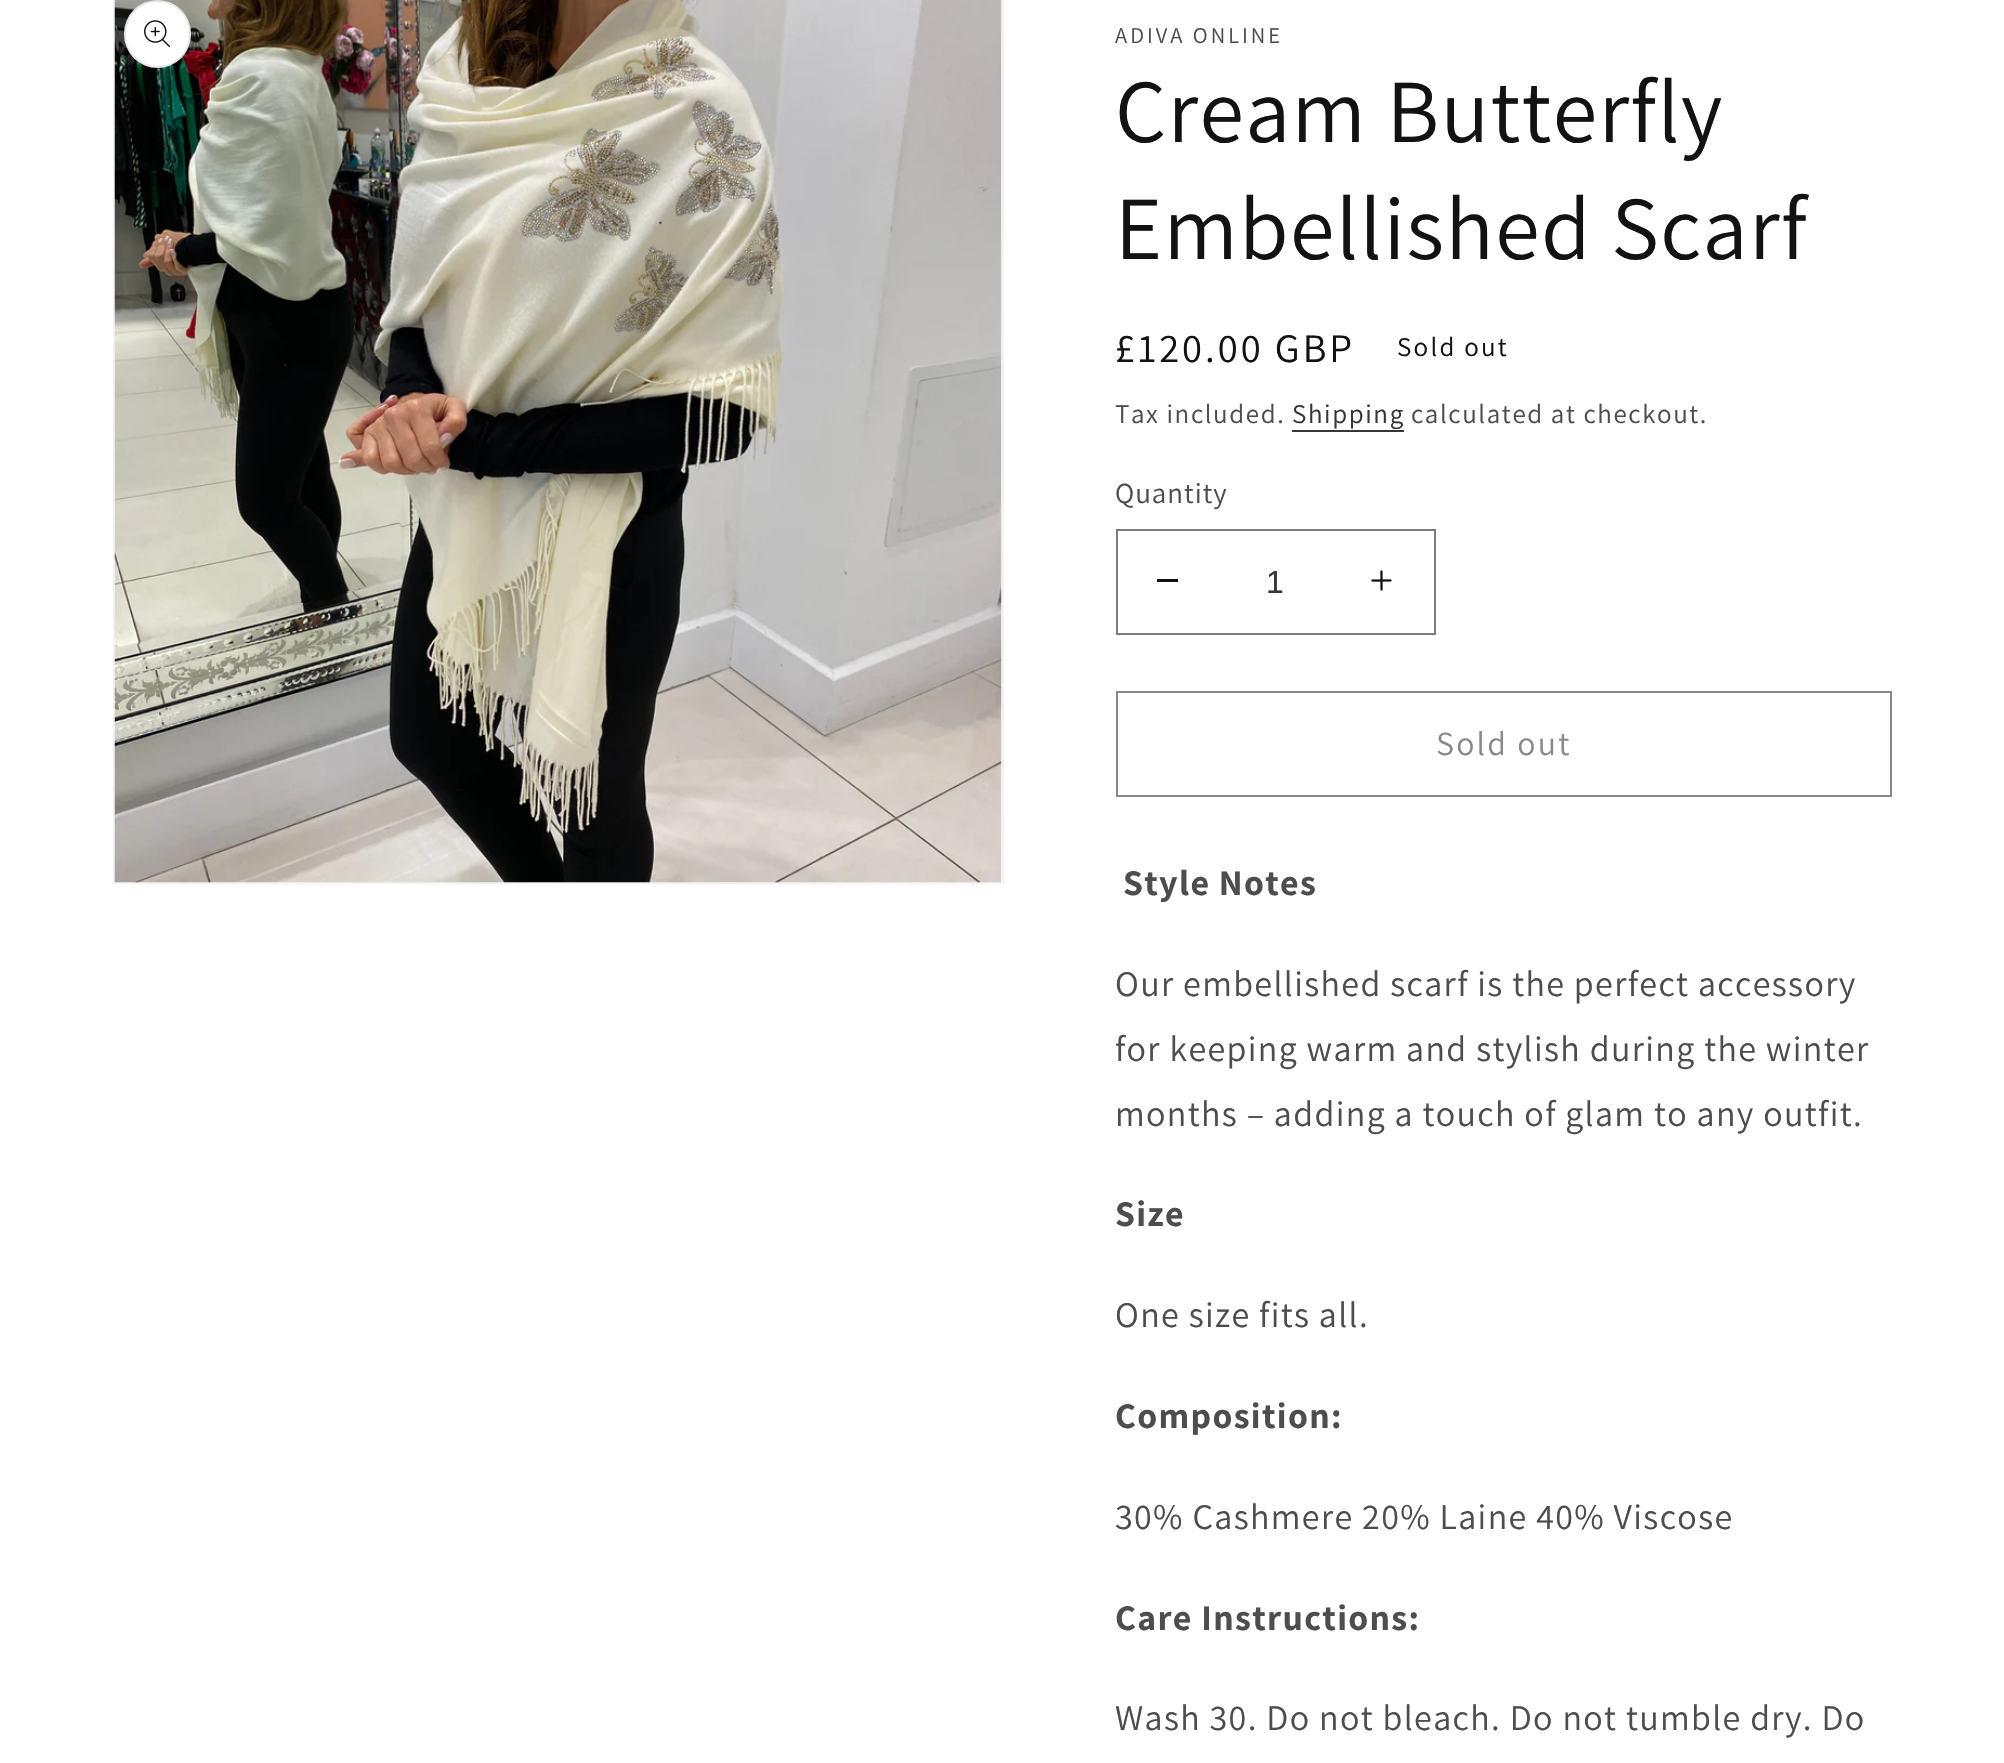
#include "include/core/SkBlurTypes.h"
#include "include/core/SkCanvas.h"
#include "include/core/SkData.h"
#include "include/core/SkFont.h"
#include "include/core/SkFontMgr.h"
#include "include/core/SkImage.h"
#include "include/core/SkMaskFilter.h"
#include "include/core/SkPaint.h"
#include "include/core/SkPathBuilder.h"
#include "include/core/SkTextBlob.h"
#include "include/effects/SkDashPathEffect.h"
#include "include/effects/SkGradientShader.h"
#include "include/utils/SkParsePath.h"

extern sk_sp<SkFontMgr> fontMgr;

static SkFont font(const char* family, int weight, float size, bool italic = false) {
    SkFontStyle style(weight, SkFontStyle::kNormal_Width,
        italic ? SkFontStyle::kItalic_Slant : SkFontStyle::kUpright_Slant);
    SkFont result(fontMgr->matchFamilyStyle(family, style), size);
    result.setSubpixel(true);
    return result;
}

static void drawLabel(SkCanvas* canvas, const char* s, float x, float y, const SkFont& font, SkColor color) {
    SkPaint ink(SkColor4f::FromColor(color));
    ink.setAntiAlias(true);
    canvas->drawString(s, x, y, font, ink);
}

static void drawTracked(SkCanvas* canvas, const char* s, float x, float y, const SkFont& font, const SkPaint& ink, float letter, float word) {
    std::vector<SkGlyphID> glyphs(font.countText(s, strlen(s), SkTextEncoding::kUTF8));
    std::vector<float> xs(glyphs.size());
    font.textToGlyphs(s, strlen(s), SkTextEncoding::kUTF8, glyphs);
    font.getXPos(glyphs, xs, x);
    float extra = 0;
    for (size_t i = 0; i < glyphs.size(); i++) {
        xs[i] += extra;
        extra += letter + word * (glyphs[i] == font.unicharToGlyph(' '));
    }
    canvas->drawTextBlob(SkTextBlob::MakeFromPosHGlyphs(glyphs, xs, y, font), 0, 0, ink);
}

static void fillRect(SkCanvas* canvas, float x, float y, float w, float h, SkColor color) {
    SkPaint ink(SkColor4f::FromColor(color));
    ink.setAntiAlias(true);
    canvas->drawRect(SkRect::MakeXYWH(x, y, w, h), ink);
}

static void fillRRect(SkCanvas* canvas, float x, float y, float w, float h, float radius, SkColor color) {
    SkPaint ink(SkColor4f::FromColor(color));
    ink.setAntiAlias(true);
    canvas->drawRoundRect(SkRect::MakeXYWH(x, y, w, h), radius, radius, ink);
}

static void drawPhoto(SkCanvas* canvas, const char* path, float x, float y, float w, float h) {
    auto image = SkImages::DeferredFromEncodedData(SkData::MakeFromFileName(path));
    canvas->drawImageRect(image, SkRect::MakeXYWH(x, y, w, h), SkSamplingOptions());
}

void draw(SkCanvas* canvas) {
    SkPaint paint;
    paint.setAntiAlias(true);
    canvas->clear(0xFFFFFFFF);
    paint.setStroke(true);
    paint.setStrokeWidth(2);
    paint.setColor(0xFFF3F3F3);
    canvas->drawRect(SkRect::MakeXYWH(114, -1, 889, 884), paint);
    drawPhoto(canvas, "assets/img1.png", 114, 0, 888, 883);
    fillRRect(canvas, 124, 0, 67, 68, 33.5f, 0xFFFFFFFF);
    paint.setColor(0x1A121212);
    canvas->drawRoundRect(SkRect::MakeXYWH(125, 1, 65, 66), 32.5f, 32.5f, paint);
    drawPhoto(canvas, "assets/img2.png", 144, 20, 27, 28);
    SkFont font1 = font("Assistant", 400, 22.5f);
    paint.setStroke(false);
    paint.setColor(0xFF4D4D4D);
    drawTracked(canvas, "ADIVA ONLINE", 1115, 43, font1, paint, 3, 0);
    SkFont font2 = font("Assistant", 400, 90);
    paint.setColor(0xFF121212);
    drawTracked(canvas, "Cream Butterfly", 1115, 142, font2, paint, 1.35f, 0);
    drawTracked(canvas, "Embellished Scarf", 1115, 259, font2, paint, 1.35f, 0);
    SkFont font3 = font("Assistant", 400, 40.5f);
    drawTracked(canvas, "£120.00 GBP", 1115, 362, font3, paint, 3, 0);
    SkFont font4 = font("Assistant", 400, 27);
    drawTracked(canvas, "Sold out", 1397, 356, font4, paint, 2.25f, 0);
    paint.setColor(0xFF4D4D4D);
    drawTracked(canvas, "Tax included.", 1115, 423, font4, paint, 1.6f, 0);
    paint.setColor(0xFF363636);
    drawTracked(canvas, "Shipping", 1292, 423, font4, paint, 1.6f, 0);
    fillRect(canvas, 1292, 430, 112, 2, 0xFF363636);
    paint.setColor(0xFF4D4D4D);
    drawTracked(canvas, "calculated at checkout.", 1411, 423, font4, paint, 1.6f, 0);
    SkFont font5 = font("Assistant", 400, 29);
    drawTracked(canvas, "Quantity", 1115, 503, font5, paint, 1, 0);
    fillRect(canvas, 1157, 579, 21, 3, 0xFF121212);
    drawPhoto(canvas, "assets/img3.png", 1371, 570, 21, 21);
    paint.setStroke(true);
    paint.setColor(0xFF7D7D7D);
    canvas->drawRect(SkRect::MakeXYWH(1117, 530, 318, 104), paint);
    SkFont font6 = font("Liberation Sans", 400, 32);
    drawLabel(canvas, "1", 1266, 593, font6, 0xFF363636);
    paint.setColor(0xFF898989);
    canvas->drawRect(SkRect::MakeXYWH(1117, 692, 774, 104), paint);
    SkFont font7 = font("Assistant", 400, 33.75f);
    paint.setStroke(false);
    drawTracked(canvas, "Sold out", 1436, 755, font7, paint, 2.25f, 0);
    SkFont font8 = font("Assistant", 700, 36);
    paint.setColor(0xFF4D4D4D);
    drawTracked(canvas, "Style Notes", 1123, 895, font8, paint, 1.35f, 0);
    SkFont font9 = font("Assistant", 400, 36);
    drawTracked(canvas, "Our embellished scarf is the perfect accessory", 1115, 996, font9, paint, 1.35f, 0);
    drawTracked(canvas, "for keeping warm and stylish during the winter", 1115, 1061, font9, paint, 1.35f, 0);
    drawTracked(canvas, "months – adding a touch of glam to any outfit.", 1115, 1126, font9, paint, 1.35f, 0);
    drawTracked(canvas, "Size", 1115, 1226, font8, paint, 1.35f, 0);
    drawTracked(canvas, "One size fits all.", 1115, 1327, font9, paint, 1.35f, 0);
    drawTracked(canvas, "Composition:", 1115, 1428, font8, paint, 1.35f, 0);
    drawTracked(canvas, "30% Cashmere 20% Laine 40% Viscose", 1115, 1529, font9, paint, 1.35f, 0);
    drawTracked(canvas, "Care Instructions:", 1115, 1630, font8, paint, 1.35f, 0);
    drawTracked(canvas, "Wash 30. Do not bleach. Do not tumble dry. Do", 1115, 1730, font9, paint, 1.35f, 0);
}
